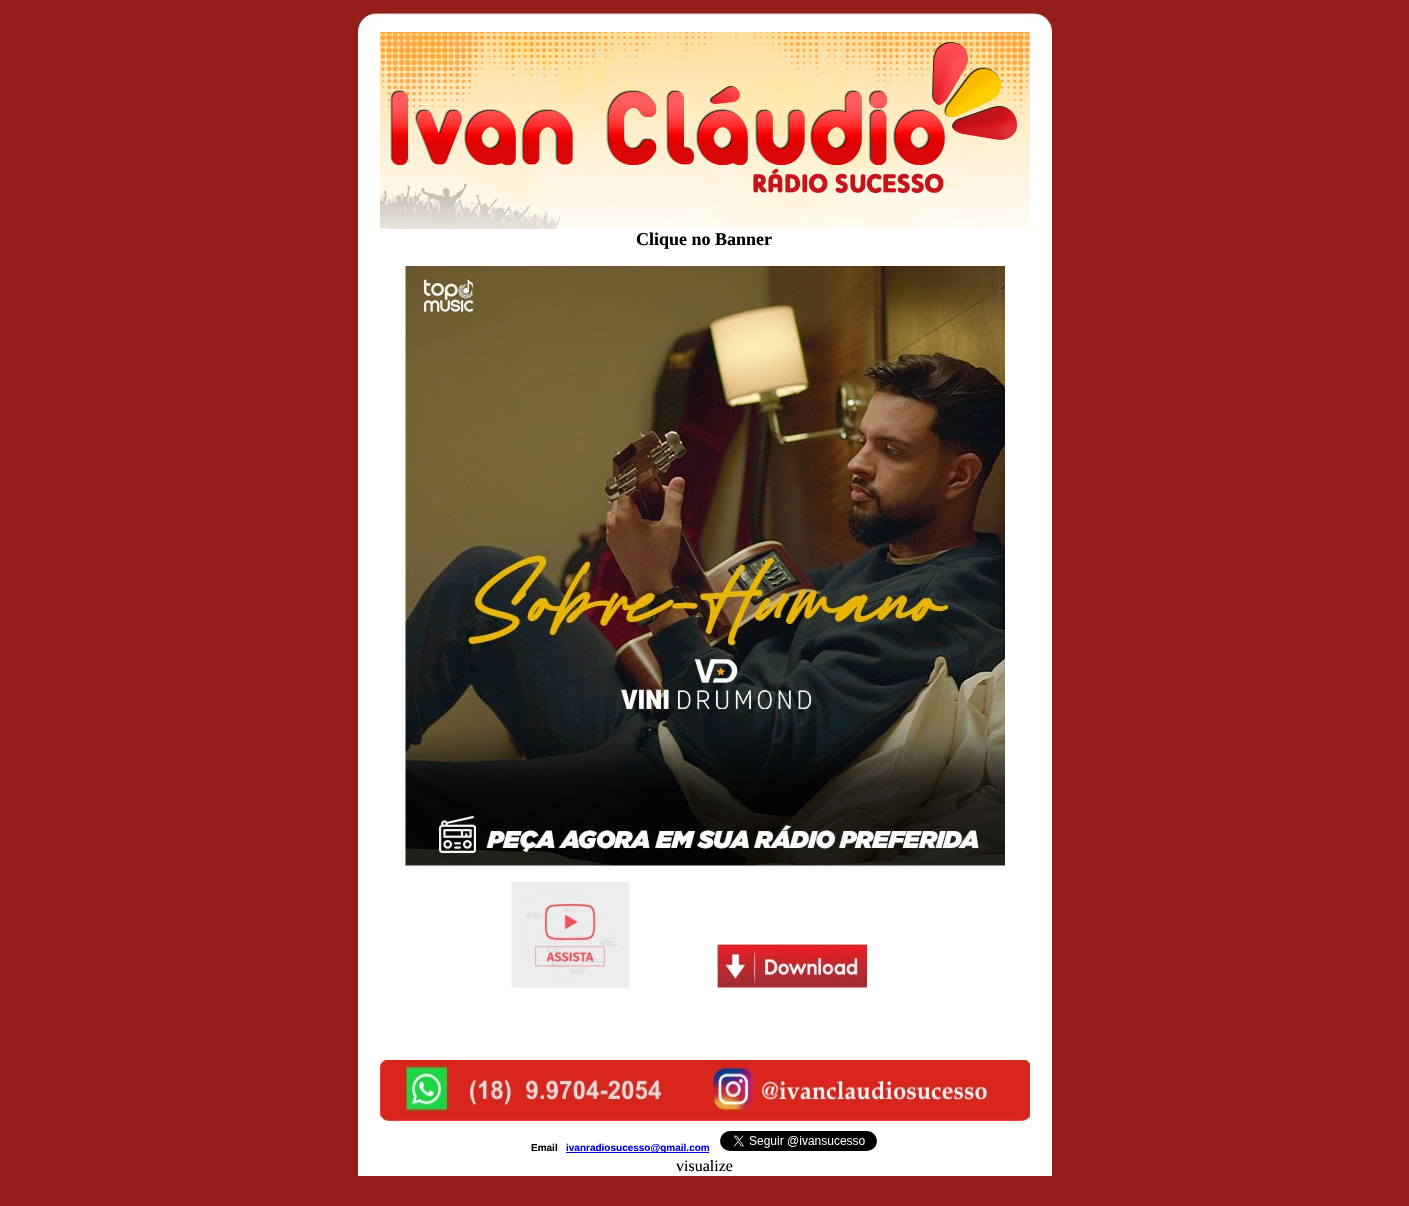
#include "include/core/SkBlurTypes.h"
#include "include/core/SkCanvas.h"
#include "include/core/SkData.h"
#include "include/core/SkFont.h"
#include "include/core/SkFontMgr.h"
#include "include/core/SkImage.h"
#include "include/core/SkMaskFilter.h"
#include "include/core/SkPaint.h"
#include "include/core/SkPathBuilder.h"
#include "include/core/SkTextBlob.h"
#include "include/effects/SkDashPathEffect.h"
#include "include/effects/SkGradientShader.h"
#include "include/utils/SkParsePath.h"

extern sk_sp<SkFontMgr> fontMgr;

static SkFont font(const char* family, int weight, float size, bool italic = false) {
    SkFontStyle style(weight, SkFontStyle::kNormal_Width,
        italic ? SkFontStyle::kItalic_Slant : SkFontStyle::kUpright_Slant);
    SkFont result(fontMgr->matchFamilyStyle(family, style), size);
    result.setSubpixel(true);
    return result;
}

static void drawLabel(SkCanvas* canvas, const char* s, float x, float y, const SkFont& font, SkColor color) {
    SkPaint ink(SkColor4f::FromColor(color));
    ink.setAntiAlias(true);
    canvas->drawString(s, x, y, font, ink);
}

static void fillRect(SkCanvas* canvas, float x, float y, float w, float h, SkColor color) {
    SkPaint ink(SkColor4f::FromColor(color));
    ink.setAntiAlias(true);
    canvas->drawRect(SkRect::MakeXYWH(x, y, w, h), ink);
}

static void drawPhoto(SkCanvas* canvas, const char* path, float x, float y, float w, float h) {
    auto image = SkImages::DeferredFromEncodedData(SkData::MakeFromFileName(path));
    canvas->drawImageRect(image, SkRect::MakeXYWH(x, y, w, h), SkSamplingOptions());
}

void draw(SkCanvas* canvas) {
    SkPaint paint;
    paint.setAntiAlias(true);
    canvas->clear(0xFF951E18);
    drawPhoto(canvas, "assets/img1.png", 358, 8, 694, 24);
    fillRect(canvas, 358, 32, 694, 1144, 0xFFFFFFFF);
    drawPhoto(canvas, "assets/img2.png", 380, 32, 650, 197);
    SkFont font1 = font("Liberation Serif", 700, 18);
    drawLabel(canvas, "Clique no Banner", 636, 245, font1, 0xFF000000);
    drawPhoto(canvas, "assets/img3.png", 405, 266, 600, 600);
    drawPhoto(canvas, "assets/img4.png", 511, 882, 118, 106);
    drawPhoto(canvas, "assets/img5.png", 717, 944, 150, 44);
    drawPhoto(canvas, "assets/img6.png", 380, 1060, 650, 61);
    SkFont font2 = font("Liberation Sans", 700, 10);
    drawLabel(canvas, "Email", 531, 1151, font2, 0xFF000000);
    fillRect(canvas, 566, 1152, 143, 1, 0xFF0000EE);
    drawLabel(canvas, "ivanradiosucesso@gmail.com", 566, 1151, font2, 0xFF0000EE);
    drawPhoto(canvas, "assets/img7.png", 720, 1131, 157, 20);
    SkFont font3 = font("Liberation Serif", 400, 16);
    drawLabel(canvas, "visualize", 676, 1171, font3, 0xFF000000);
}
